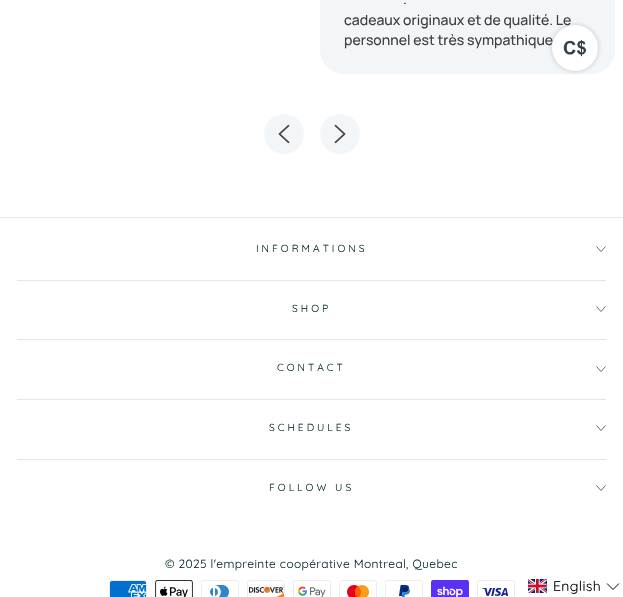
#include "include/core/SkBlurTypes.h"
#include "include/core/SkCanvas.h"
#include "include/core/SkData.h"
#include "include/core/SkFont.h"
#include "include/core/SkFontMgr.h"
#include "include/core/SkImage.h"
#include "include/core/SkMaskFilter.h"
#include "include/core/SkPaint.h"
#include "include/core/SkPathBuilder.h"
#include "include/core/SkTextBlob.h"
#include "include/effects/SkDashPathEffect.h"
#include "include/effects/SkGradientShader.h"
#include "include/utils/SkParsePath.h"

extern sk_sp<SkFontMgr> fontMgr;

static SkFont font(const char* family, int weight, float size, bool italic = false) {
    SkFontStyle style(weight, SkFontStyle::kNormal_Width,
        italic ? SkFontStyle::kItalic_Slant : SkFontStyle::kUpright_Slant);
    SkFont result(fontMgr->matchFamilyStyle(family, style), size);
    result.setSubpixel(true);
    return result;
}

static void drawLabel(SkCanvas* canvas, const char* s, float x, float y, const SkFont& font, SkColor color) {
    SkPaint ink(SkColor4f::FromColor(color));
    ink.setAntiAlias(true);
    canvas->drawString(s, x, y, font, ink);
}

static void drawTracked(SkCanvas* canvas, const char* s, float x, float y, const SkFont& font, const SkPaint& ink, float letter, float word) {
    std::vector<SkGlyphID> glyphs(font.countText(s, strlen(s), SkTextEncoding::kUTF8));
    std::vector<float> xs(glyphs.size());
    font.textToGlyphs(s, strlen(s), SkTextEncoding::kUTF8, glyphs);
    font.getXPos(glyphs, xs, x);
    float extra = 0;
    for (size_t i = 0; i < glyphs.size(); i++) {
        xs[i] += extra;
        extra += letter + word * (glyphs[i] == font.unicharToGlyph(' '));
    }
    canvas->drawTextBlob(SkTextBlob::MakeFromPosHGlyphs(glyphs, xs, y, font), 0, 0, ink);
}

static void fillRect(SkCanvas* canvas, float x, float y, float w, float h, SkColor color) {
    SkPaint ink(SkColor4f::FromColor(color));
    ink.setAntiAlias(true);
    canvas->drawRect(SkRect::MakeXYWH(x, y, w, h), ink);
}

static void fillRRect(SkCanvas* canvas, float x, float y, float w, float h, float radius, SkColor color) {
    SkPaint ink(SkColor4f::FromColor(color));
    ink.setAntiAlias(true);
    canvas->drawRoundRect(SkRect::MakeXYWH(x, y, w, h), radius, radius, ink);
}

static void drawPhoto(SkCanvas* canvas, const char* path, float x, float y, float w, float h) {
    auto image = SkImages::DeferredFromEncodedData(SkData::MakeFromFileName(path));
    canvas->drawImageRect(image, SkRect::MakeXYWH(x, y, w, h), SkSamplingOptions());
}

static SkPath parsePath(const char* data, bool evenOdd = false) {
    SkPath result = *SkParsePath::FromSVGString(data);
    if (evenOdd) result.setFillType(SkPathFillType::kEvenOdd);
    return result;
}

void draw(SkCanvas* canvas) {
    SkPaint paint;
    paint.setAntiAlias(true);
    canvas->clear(0xFFFFFFFF);
    fillRRect(canvas, 320, -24, 295, 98, 24, 0xFFF3F6F9);
    SkFont font1 = font("Manrope", 500, 14);
    drawLabel(canvas, ".", 403, 4, font1, 0xFF404040);
    drawLabel(canvas, "cadeaux originaux et de qualité. Le", 344, 25, font1, 0xFF404040);
    drawLabel(canvas, "personnel est très sympathique", 344, 45, font1, 0xFF404040);
    paint.setColor(0xFFF3F6F9);
    canvas->drawCircle(284, 134, 20, paint);
    drawPhoto(canvas, "assets/img1.png", 278, 124, 12, 20);
    canvas->drawCircle(340, 134, 20, paint);
    drawPhoto(canvas, "assets/img2.png", 334, 124, 12, 20);
    fillRect(canvas, 0, 217, 623, 1, 0xFFE8E8E1);
    SkFont font2 = font("Quicksand", 400, 10.25f);
    paint.setColor(0xFF0D2E31);
    drawTracked(canvas, "INFORMATIONS", 256, 252, font2, paint, 3, 0);
    paint.setStroke(true);
    paint.setStrokeWidth(0.7f);
    canvas->drawPath(parsePath("M596.5 246.5L601 251.5L605.5 246.5"), paint);
    fillRect(canvas, 17, 280, 589, 1, 0xFFE2E6E6);
    paint.setStroke(false);
    drawTracked(canvas, "SHOP", 292, 312, font2, paint, 3, 0);
    paint.setStroke(true);
    canvas->drawPath(parsePath("M596.5 306.5L601 311.5L605.5 306.5"), paint);
    fillRect(canvas, 17, 339, 589, 1, 0xFFE2E6E6);
    paint.setStroke(false);
    drawTracked(canvas, "CONTACT", 277, 371, font2, paint, 3, 0);
    paint.setStroke(true);
    canvas->drawPath(parsePath("M596.5 366.5L601 371.5L605.5 366.5"), paint);
    fillRect(canvas, 17, 399, 589, 1, 0xFFE2E6E6);
    paint.setStroke(false);
    drawTracked(canvas, "SCHEDULES", 269, 431, font2, paint, 3, 0);
    paint.setStroke(true);
    canvas->drawPath(parsePath("M596.5 425.5L601 430.5L605.5 425.5"), paint);
    fillRect(canvas, 17, 459, 589, 1, 0xFFE2E6E6);
    paint.setStroke(false);
    drawTracked(canvas, "FOLLOW US", 269, 491, font2, paint, 3, 0);
    paint.setStroke(true);
    canvas->drawPath(parsePath("M596.5 485.5L601 490.5L605.5 485.5"), paint);
    SkFont font3 = font("Quicksand", 400, 12);
    paint.setStroke(false);
    drawTracked(canvas, "© 2025 l'empreinte coopérative Montreal, Quebec", 165, 568, font3, paint, 0.35f, 0);
    drawPhoto(canvas, "assets/img3.png", 109, 580, 38, 17);
    drawPhoto(canvas, "assets/img4.png", 155, 580, 38, 17);
    drawPhoto(canvas, "assets/img5.png", 201, 580, 38, 17);
    drawPhoto(canvas, "assets/img6.png", 247, 580, 38, 17);
    drawPhoto(canvas, "assets/img7.png", 293, 580, 38, 17);
    drawPhoto(canvas, "assets/img8.png", 339, 580, 38, 17);
    drawPhoto(canvas, "assets/img9.png", 385, 580, 38, 17);
    drawPhoto(canvas, "assets/img10.png", 431, 580, 38, 17);
    drawPhoto(canvas, "assets/img11.png", 477, 580, 38, 17);
    paint.setColor(0x40212B36);
    paint.setMaskFilter(SkMaskFilter::MakeBlur(kNormal_SkBlurStyle, 2.5f));
    canvas->drawRoundRect(SkRect::MakeXYWH(552, 25, 46, 46), 23, 23, paint);
    paint.setMaskFilter(nullptr);
    paint.setColor(0xFFFFFFFF);
    canvas->drawCircle(575, 48, 23, paint);
    drawPhoto(canvas, "assets/img12.png", 563, 39, 23, 18);
    drawPhoto(canvas, "assets/img13.png", 528, 579, 19, 14);
    SkFont font4 = font("Quicksand", 400, 14);
    paint.setColor(0xFF000000);
    drawTracked(canvas, "English", 553, 591, font4, paint, 0.35f, 0);
    paint.setStroke(true);
    paint.setStrokeWidth(1);
    canvas->drawPath(parsePath("M607 583.5L613 589.5L619 583.5"), paint);
}
